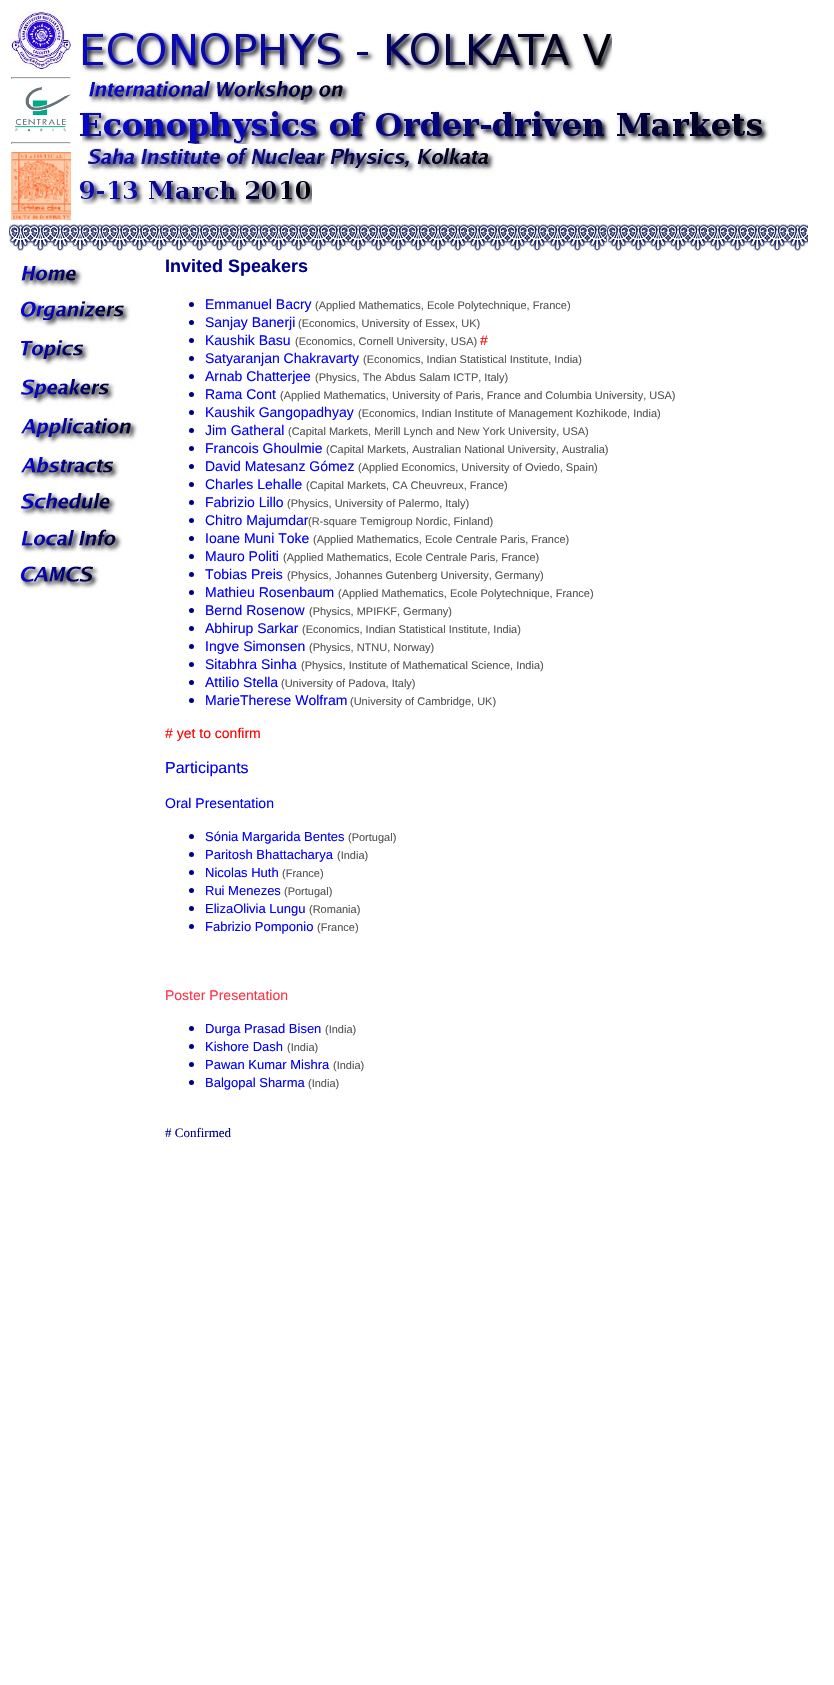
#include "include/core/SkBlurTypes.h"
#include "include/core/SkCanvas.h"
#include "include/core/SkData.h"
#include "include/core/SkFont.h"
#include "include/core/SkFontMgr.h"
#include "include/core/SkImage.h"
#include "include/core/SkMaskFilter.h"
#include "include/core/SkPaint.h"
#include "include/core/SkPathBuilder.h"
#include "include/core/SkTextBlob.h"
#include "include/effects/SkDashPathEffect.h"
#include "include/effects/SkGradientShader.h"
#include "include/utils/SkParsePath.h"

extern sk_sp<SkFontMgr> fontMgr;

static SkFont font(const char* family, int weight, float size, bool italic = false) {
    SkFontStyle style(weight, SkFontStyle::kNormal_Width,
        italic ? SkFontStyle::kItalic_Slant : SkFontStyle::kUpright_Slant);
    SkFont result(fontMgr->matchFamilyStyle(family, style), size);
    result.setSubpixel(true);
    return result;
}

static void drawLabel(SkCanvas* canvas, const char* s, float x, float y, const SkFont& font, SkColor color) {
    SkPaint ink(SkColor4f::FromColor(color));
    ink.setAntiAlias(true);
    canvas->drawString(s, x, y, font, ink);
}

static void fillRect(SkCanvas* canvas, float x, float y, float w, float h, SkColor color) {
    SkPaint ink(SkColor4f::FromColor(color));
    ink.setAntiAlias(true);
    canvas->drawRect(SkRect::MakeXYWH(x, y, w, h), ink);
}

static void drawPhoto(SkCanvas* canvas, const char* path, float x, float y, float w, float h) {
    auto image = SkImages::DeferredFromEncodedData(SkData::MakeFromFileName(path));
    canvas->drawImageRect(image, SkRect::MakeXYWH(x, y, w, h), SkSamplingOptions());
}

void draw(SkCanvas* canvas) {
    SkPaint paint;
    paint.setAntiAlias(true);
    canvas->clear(0xFFFFFFFF);
    drawPhoto(canvas, "assets/img1.png", 11, 11, 60, 58);
    fillRect(canvas, 11, 77, 60, 1, 0xFF9F9F9F);
    fillRect(canvas, 70, 77, 1, 2, 0xFFEEEEEE);
    fillRect(canvas, 11, 78, 60, 1, 0xFFEEEEEE);
    fillRect(canvas, 11, 77, 1, 2, 0xFF9F9F9F);
    drawPhoto(canvas, "assets/img2.png", 15, 87, 56, 45);
    fillRect(canvas, 11, 142, 60, 1, 0xFF9F9F9F);
    fillRect(canvas, 70, 142, 1, 2, 0xFFEEEEEE);
    fillRect(canvas, 11, 143, 60, 1, 0xFFEEEEEE);
    fillRect(canvas, 11, 142, 1, 2, 0xFF9F9F9F);
    drawPhoto(canvas, "assets/img3.png", 11, 152, 60, 68);
    drawPhoto(canvas, "assets/img4.png", 82, 31, 530, 42);
    drawPhoto(canvas, "assets/img5.png", 88, 80, 262, 25);
    drawPhoto(canvas, "assets/img6.png", 79, 109, 690, 35);
    drawPhoto(canvas, "assets/img7.png", 79, 144, 418, 32);
    drawPhoto(canvas, "assets/img8.png", 79, 179, 233, 26);
    drawPhoto(canvas, "assets/img9.png", 9, 224, 799, 28);
    drawPhoto(canvas, "assets/img10.png", 20, 265, 63, 23);
    drawPhoto(canvas, "assets/img11.png", 19, 300, 112, 28);
    drawPhoto(canvas, "assets/img12.png", 20, 340, 70, 27);
    drawPhoto(canvas, "assets/img13.png", 20, 378, 96, 28);
    drawPhoto(canvas, "assets/img14.png", 20, 417, 118, 27);
    drawPhoto(canvas, "assets/img15.png", 20, 456, 100, 24);
    drawPhoto(canvas, "assets/img16.png", 20, 492, 97, 25);
    drawPhoto(canvas, "assets/img17.png", 20, 529, 103, 24);
    drawPhoto(canvas, "assets/img18.png", 19, 565, 81, 25);
    SkFont font1 = font("Liberation Sans", 700, 18);
    drawLabel(canvas, "Invited Speakers", 165, 272, font1, 0xFF000088);
    paint.setColor(0xFF000088);
    canvas->drawCircle(191.5f, 304.5f, 2.5f, paint);
    SkFont font2 = font("Liberation Sans", 400, 14);
    drawLabel(canvas, "Emmanuel Bacry", 205, 309, font2, 0xFF0000FF);
    SkFont font3 = font("Liberation Sans", 400, 11);
    drawLabel(canvas, "(Applied Mathematics, Ecole Polytechnique, France)", 315, 309, font3, 0xFF555555);
    canvas->drawCircle(191.5f, 322.5f, 2.5f, paint);
    drawLabel(canvas, "Sanjay Banerji", 205, 327, font2, 0xFF0000FF);
    drawLabel(canvas, "(Economics, University of Essex, UK)", 298, 327, font3, 0xFF555555);
    canvas->drawCircle(191.5f, 340.5f, 2.5f, paint);
    drawLabel(canvas, "Kaushik Basu", 205, 345, font2, 0xFF0000FF);
    drawLabel(canvas, "(Economics, Cornell University, USA)", 295, 345, font3, 0xFF555555);
    drawLabel(canvas, "#", 480, 345, font2, 0xFFFF0000);
    canvas->drawCircle(191.5f, 358.5f, 2.5f, paint);
    drawLabel(canvas, "Satyaranjan Chakravarty", 205, 363, font2, 0xFF0000FF);
    drawLabel(canvas, "(Economics, Indian Statistical Institute, India)", 363, 363, font3, 0xFF555555);
    canvas->drawCircle(191.5f, 376.5f, 2.5f, paint);
    drawLabel(canvas, "Arnab Chatterjee", 205, 381, font2, 0xFF0000FF);
    drawLabel(canvas, "(Physics, The Abdus Salam ICTP, Italy)", 315, 381, font3, 0xFF555555);
    canvas->drawCircle(191.5f, 394.5f, 2.5f, paint);
    drawLabel(canvas, "Rama Cont", 205, 399, font2, 0xFF0000FF);
    drawLabel(canvas, "(Applied Mathematics, University of Paris, France and Columbia University, USA)", 280, 399, font3, 0xFF555555);
    canvas->drawCircle(191.5f, 412.5f, 2.5f, paint);
    drawLabel(canvas, "Kaushik Gangopadhyay", 205, 417, font2, 0xFF0000FF);
    drawLabel(canvas, "(Economics, Indian Institute of Management Kozhikode, India)", 358, 417, font3, 0xFF555555);
    canvas->drawCircle(191.5f, 430.5f, 2.5f, paint);
    drawLabel(canvas, "Jim Gatheral", 205, 435, font2, 0xFF0000FF);
    drawLabel(canvas, "(Capital Markets, Merill Lynch and New York University, USA)", 288, 435, font3, 0xFF555555);
    canvas->drawCircle(191.5f, 448.5f, 2.5f, paint);
    drawLabel(canvas, "Francois Ghoulmie", 205, 453, font2, 0xFF0000FF);
    drawLabel(canvas, "(Capital Markets, Australian National University, Australia)", 326, 453, font3, 0xFF555555);
    canvas->drawCircle(191.5f, 466.5f, 2.5f, paint);
    drawLabel(canvas, "David Matesanz Gómez", 205, 471, font2, 0xFF0000FF);
    drawLabel(canvas, "(Applied Economics, University of Oviedo, Spain)", 358, 471, font3, 0xFF555555);
    canvas->drawCircle(191.5f, 484.5f, 2.5f, paint);
    drawLabel(canvas, "Charles Lehalle", 205, 489, font2, 0xFF0000FF);
    drawLabel(canvas, "(Capital Markets, CA Cheuvreux, France)", 306, 489, font3, 0xFF555555);
    canvas->drawCircle(191.5f, 502.5f, 2.5f, paint);
    drawLabel(canvas, "Fabrizio Lillo", 205, 507, font2, 0xFF0000FF);
    drawLabel(canvas, "(Physics, University of Palermo, Italy)", 287, 507, font3, 0xFF555555);
    canvas->drawCircle(191.5f, 520.5f, 2.5f, paint);
    drawLabel(canvas, "Chitro Majumdar", 205, 525, font2, 0xFF0000FF);
    drawLabel(canvas, "(R-square Temigroup Nordic, Finland)", 308, 525, font3, 0xFF555555);
    canvas->drawCircle(191.5f, 538.5f, 2.5f, paint);
    drawLabel(canvas, "Ioane Muni Toke", 205, 543, font2, 0xFF0000FF);
    drawLabel(canvas, "(Applied Mathematics, Ecole Centrale Paris, France)", 313, 543, font3, 0xFF555555);
    canvas->drawCircle(191.5f, 556.5f, 2.5f, paint);
    drawLabel(canvas, "Mauro Politi", 205, 561, font2, 0xFF0000FF);
    drawLabel(canvas, "(Applied Mathematics, Ecole Centrale Paris, France)", 283, 561, font3, 0xFF555555);
    canvas->drawCircle(191.5f, 574.5f, 2.5f, paint);
    drawLabel(canvas, "Tobias Preis", 205, 579, font2, 0xFF0000FF);
    drawLabel(canvas, "(Physics, Johannes Gutenberg University, Germany)", 287, 579, font3, 0xFF555555);
    canvas->drawCircle(191.5f, 592.5f, 2.5f, paint);
    drawLabel(canvas, "Mathieu Rosenbaum", 205, 597, font2, 0xFF0000FF);
    drawLabel(canvas, "(Applied Mathematics, Ecole Polytechnique, France)", 338, 597, font3, 0xFF555555);
    canvas->drawCircle(191.5f, 610.5f, 2.5f, paint);
    drawLabel(canvas, "Bernd Rosenow", 205, 615, font2, 0xFF0000FF);
    drawLabel(canvas, "(Physics, MPIFKF, Germany)", 309, 615, font3, 0xFF555555);
    canvas->drawCircle(191.5f, 628.5f, 2.5f, paint);
    drawLabel(canvas, "Abhirup Sarkar", 205, 633, font2, 0xFF0000FF);
    drawLabel(canvas, "(Economics, Indian Statistical Institute, India)", 302, 633, font3, 0xFF555555);
    canvas->drawCircle(191.5f, 646.5f, 2.5f, paint);
    drawLabel(canvas, "Ingve Simonsen", 205, 651, font2, 0xFF0000FF);
    drawLabel(canvas, "(Physics, NTNU, Norway)", 309, 651, font3, 0xFF555555);
    canvas->drawCircle(191.5f, 664.5f, 2.5f, paint);
    drawLabel(canvas, "Sitabhra Sinha", 205, 669, font2, 0xFF0000FF);
    drawLabel(canvas, "(Physics, Institute of Mathematical Science, India)", 301, 669, font3, 0xFF555555);
    canvas->drawCircle(191.5f, 682.5f, 2.5f, paint);
    drawLabel(canvas, "Attilio Stella", 205, 687, font2, 0xFF0000FF);
    drawLabel(canvas, "(University of Padova, Italy)", 281, 687, font3, 0xFF555555);
    canvas->drawCircle(191.5f, 700.5f, 2.5f, paint);
    drawLabel(canvas, "MarieTherese Wolfram", 205, 705, font2, 0xFF0000FF);
    drawLabel(canvas, "(University of Cambridge, UK)", 350, 705, font3, 0xFF555555);
    drawLabel(canvas, "# yet to confirm", 165, 738, font2, 0xFFFF0000);
    SkFont font4 = font("Liberation Sans", 400, 16);
    drawLabel(canvas, "Participants", 165, 773, font4, 0xFF0000FF);
    drawLabel(canvas, "Oral Presentation", 165, 808, font2, 0xFF0000FF);
    canvas->drawCircle(191.5f, 836.5f, 2.5f, paint);
    SkFont font5 = font("Liberation Sans", 400, 13);
    drawLabel(canvas, "Sónia Margarida Bentes", 205, 841, font5, 0xFF0000FF);
    drawLabel(canvas, "(Portugal)", 348, 841, font3, 0xFF555555);
    canvas->drawCircle(191.5f, 854.5f, 2.5f, paint);
    drawLabel(canvas, "Paritosh Bhattacharya", 205, 859, font5, 0xFF0000FF);
    drawLabel(canvas, "(India)", 337, 859, font3, 0xFF555555);
    canvas->drawCircle(191.5f, 872.5f, 2.5f, paint);
    drawLabel(canvas, "Nicolas Huth", 205, 877, font5, 0xFF0000FF);
    drawLabel(canvas, "(France)", 282, 877, font3, 0xFF555555);
    canvas->drawCircle(191.5f, 890.5f, 2.5f, paint);
    drawLabel(canvas, "Rui Menezes", 205, 895, font5, 0xFF0000FF);
    drawLabel(canvas, "(Portugal)", 284, 895, font3, 0xFF555555);
    canvas->drawCircle(191.5f, 908.5f, 2.5f, paint);
    drawLabel(canvas, "ElizaOlivia Lungu", 205, 913, font5, 0xFF0000FF);
    drawLabel(canvas, "(Romania)", 309, 913, font3, 0xFF555555);
    canvas->drawCircle(191.5f, 926.5f, 2.5f, paint);
    drawLabel(canvas, "Fabrizio Pomponio", 205, 931, font5, 0xFF0000FF);
    drawLabel(canvas, "(France)", 317, 931, font3, 0xFF555555);
    drawLabel(canvas, "Poster Presentation", 165, 1000, font2, 0xFFFF3344);
    canvas->drawCircle(191.5f, 1028.5f, 2.5f, paint);
    drawLabel(canvas, "Durga Prasad Bisen", 205, 1033, font5, 0xFF0000FF);
    drawLabel(canvas, "(India)", 325, 1033, font3, 0xFF555555);
    canvas->drawCircle(191.5f, 1046.5f, 2.5f, paint);
    drawLabel(canvas, "Kishore Dash", 205, 1051, font5, 0xFF0000FF);
    drawLabel(canvas, "(India)", 287, 1051, font3, 0xFF555555);
    canvas->drawCircle(191.5f, 1064.5f, 2.5f, paint);
    drawLabel(canvas, "Pawan Kumar Mishra", 205, 1069, font5, 0xFF0000FF);
    drawLabel(canvas, "(India)", 333, 1069, font3, 0xFF555555);
    canvas->drawCircle(191.5f, 1082.5f, 2.5f, paint);
    drawLabel(canvas, "Balgopal Sharma", 205, 1087, font5, 0xFF0000FF);
    drawLabel(canvas, "(India)", 308, 1087, font3, 0xFF555555);
    SkFont font6 = font("Liberation Serif", 400, 13);
    drawLabel(canvas, "# Confirmed", 165, 1137, font6, 0xFF000088);
}
